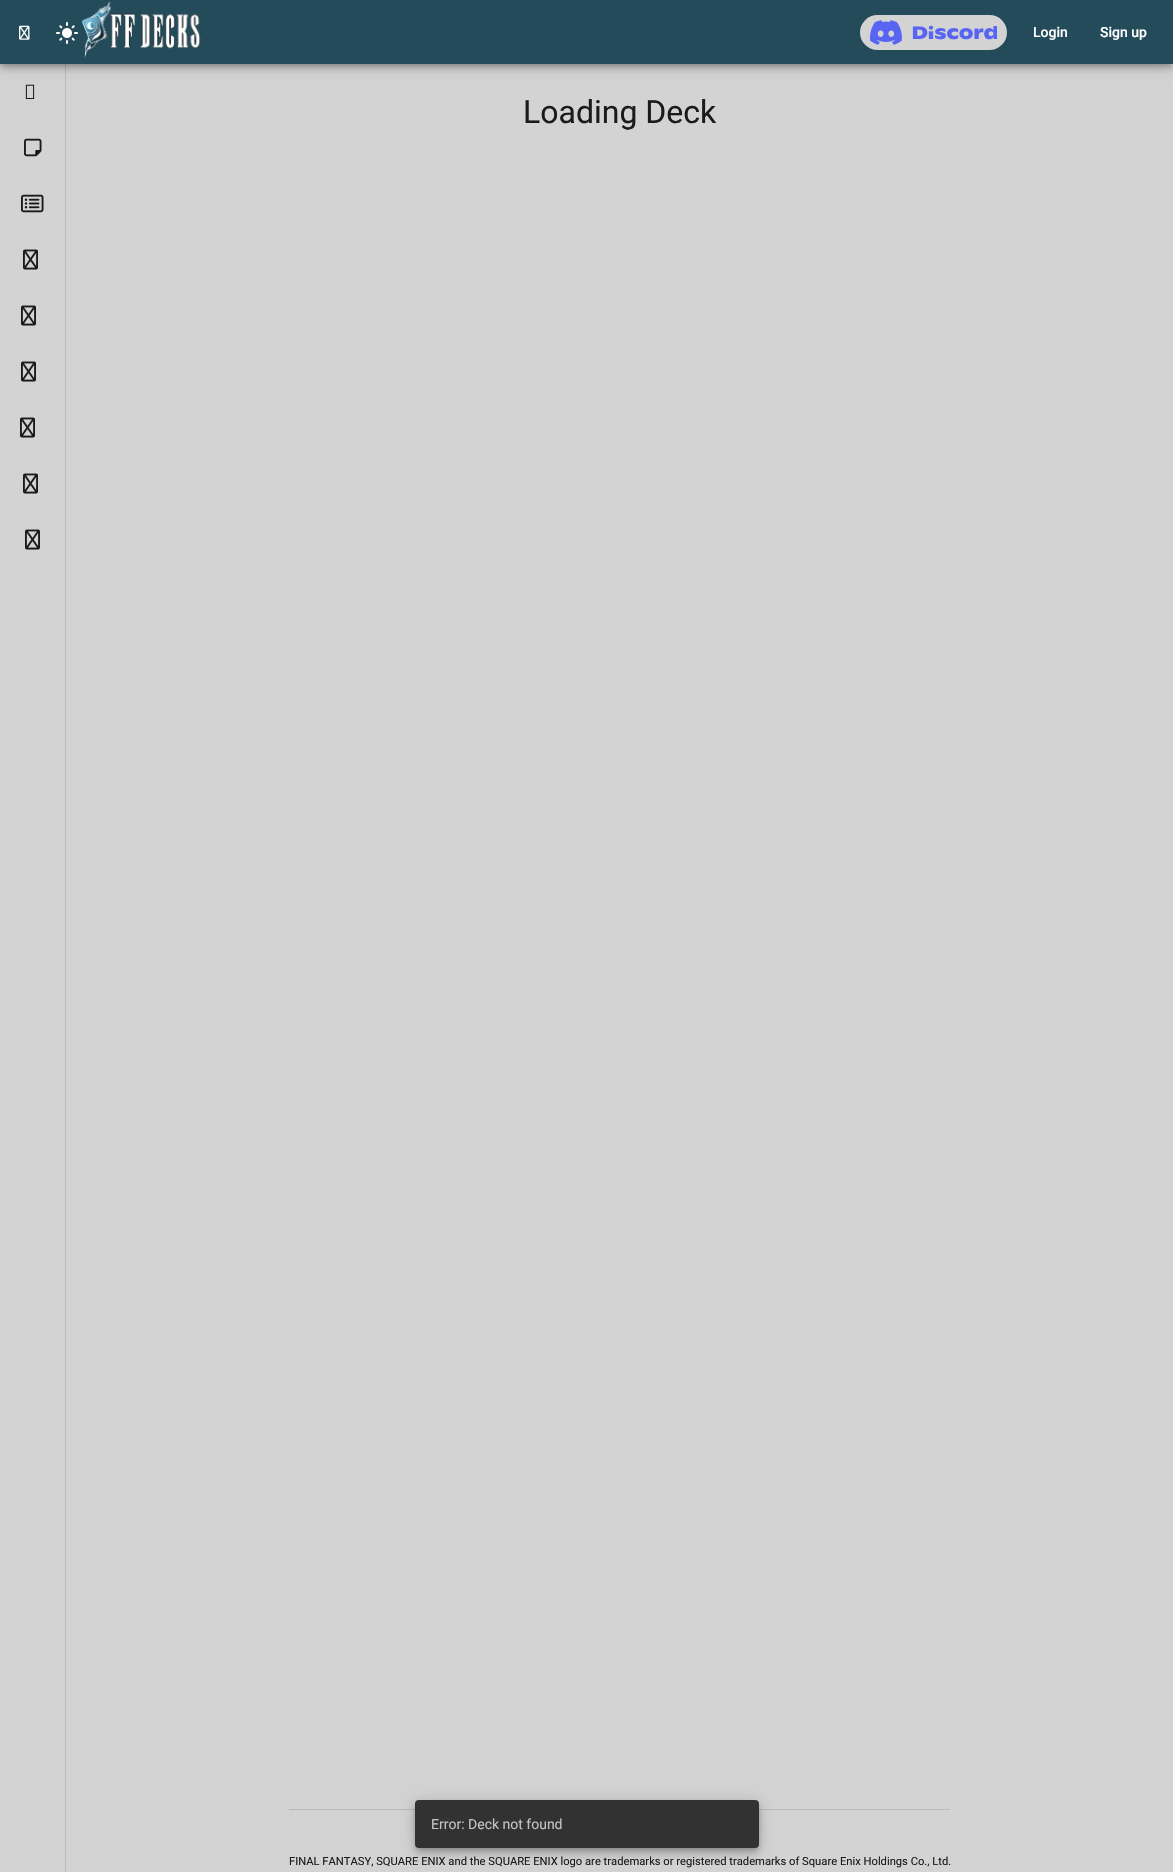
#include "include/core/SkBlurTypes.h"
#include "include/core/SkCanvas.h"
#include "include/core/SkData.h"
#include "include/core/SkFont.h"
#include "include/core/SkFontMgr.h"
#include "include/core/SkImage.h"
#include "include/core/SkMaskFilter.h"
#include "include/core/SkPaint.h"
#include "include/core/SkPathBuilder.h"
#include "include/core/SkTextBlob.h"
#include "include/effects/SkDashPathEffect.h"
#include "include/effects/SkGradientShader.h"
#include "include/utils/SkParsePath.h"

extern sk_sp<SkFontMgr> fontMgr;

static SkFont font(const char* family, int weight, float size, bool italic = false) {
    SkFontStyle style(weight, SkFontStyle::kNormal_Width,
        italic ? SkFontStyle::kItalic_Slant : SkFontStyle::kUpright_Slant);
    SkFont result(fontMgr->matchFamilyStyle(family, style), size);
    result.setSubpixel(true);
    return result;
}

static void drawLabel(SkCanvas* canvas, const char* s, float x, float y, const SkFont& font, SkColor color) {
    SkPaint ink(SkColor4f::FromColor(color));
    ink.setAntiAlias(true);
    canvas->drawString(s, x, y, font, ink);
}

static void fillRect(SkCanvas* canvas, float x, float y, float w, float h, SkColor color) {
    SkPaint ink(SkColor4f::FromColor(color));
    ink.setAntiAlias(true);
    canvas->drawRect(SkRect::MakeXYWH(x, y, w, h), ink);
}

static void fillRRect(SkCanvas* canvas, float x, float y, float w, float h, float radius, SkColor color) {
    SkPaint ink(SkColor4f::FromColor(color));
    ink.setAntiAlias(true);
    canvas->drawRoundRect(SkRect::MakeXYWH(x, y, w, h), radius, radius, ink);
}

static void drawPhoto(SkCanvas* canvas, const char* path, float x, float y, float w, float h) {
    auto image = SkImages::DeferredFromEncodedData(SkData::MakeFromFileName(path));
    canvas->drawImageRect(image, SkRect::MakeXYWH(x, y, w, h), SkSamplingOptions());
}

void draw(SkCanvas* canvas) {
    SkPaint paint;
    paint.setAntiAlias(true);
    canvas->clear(0xFFD3D3D3);
    fillRect(canvas, 65, 64, 1, 1808, 0xFFBABABA);
    drawPhoto(canvas, "assets/img5.png", 25, 84, 10, 15);
    paint.setColor(0x1F000000);
    paint.setMaskFilter(SkMaskFilter::MakeBlur(kNormal_SkBlurStyle, 7));
    canvas->drawRect(SkRect::MakeXYWH(0, 1, 1173, 64), paint);
    paint.setMaskFilter(nullptr);
    paint.setColor(0x24000000);
    paint.setMaskFilter(SkMaskFilter::MakeBlur(kNormal_SkBlurStyle, 4));
    canvas->drawRect(SkRect::MakeXYWH(0, 5, 1173, 64), paint);
    paint.setMaskFilter(nullptr);
    paint.setColor(0x33000000);
    paint.setMaskFilter(SkMaskFilter::MakeBlur(kNormal_SkBlurStyle, 2.5f));
    canvas->drawRect(SkRect::MakeXYWH(1, 4, 1171, 62), paint);
    paint.setMaskFilter(nullptr);
    fillRect(canvas, 0, 0, 1173, 64, 0xFF244B5A);
    drawPhoto(canvas, "assets/img1.png", 19, 25, 11, 15);
    drawPhoto(canvas, "assets/img2.png", 56, 22, 22, 22);
    drawPhoto(canvas, "assets/img3.png", 82, 2, 119, 55);
    fillRRect(canvas, 860, 15, 147, 35, 17.5f, 0xFFD3D3D3);
    drawPhoto(canvas, "assets/img4.png", 870, 20, 127, 25);
    SkFont font1 = font("Roboto", 500, 14);
    drawLabel(canvas, "Login", 1033, 37, font1, 0xFFFFFFFF);
    drawLabel(canvas, "Sign up", 1100, 37, font1, 0xFFFFFFFF);
    drawPhoto(canvas, "assets/img6.png", 24, 138, 18, 19);
    drawPhoto(canvas, "assets/img7.png", 21, 194, 23, 19);
    drawPhoto(canvas, "assets/img8.png", 23, 249, 15, 21);
    drawPhoto(canvas, "assets/img8.png", 21, 305, 15, 21);
    drawPhoto(canvas, "assets/img8.png", 21, 361, 15, 21);
    drawPhoto(canvas, "assets/img8.png", 20, 417, 15, 21);
    drawPhoto(canvas, "assets/img8.png", 23, 473, 15, 21);
    drawPhoto(canvas, "assets/img8.png", 25, 529, 15, 21);
    SkFont font2 = font("Roboto", 400, 32);
    drawLabel(canvas, "Loading Deck", 523, 123, font2, 0xFF1B1B1B);
    fillRect(canvas, 289, 1809, 661, 1, 0xFFBABABA);
    SkFont font3 = font("Roboto", 400, 11.2f);
    drawLabel(canvas, "FINAL FANTASY, SQUARE ENIX and the SQUARE ENIX logo are trademarks or registered trademarks of Square Enix Holdings Co., Ltd.", 289, 1865, font3, 0xFF1B1B1B);
    paint.setColor(0x1F000000);
    paint.setMaskFilter(SkMaskFilter::MakeBlur(kNormal_SkBlurStyle, 9));
    canvas->drawRoundRect(SkRect::MakeXYWH(415, 1801, 344, 48), 4, 4, paint);
    paint.setMaskFilter(nullptr);
    paint.setColor(0x24000000);
    paint.setMaskFilter(SkMaskFilter::MakeBlur(kNormal_SkBlurStyle, 5));
    canvas->drawRoundRect(SkRect::MakeXYWH(415, 1806, 344, 48), 4, 4, paint);
    paint.setMaskFilter(nullptr);
    paint.setColor(0x33000000);
    paint.setMaskFilter(SkMaskFilter::MakeBlur(kNormal_SkBlurStyle, 2.5f));
    canvas->drawRoundRect(SkRect::MakeXYWH(416, 1804, 342, 46), 3, 3, paint);
    paint.setMaskFilter(nullptr);
    fillRRect(canvas, 415, 1800, 344, 48, 4, 0xFF323232);
    SkFont font4 = font("Roboto", 400, 14);
    drawLabel(canvas, "Error: Deck not found", 431, 1829, font4, 0xFFC2C2C2);
}
